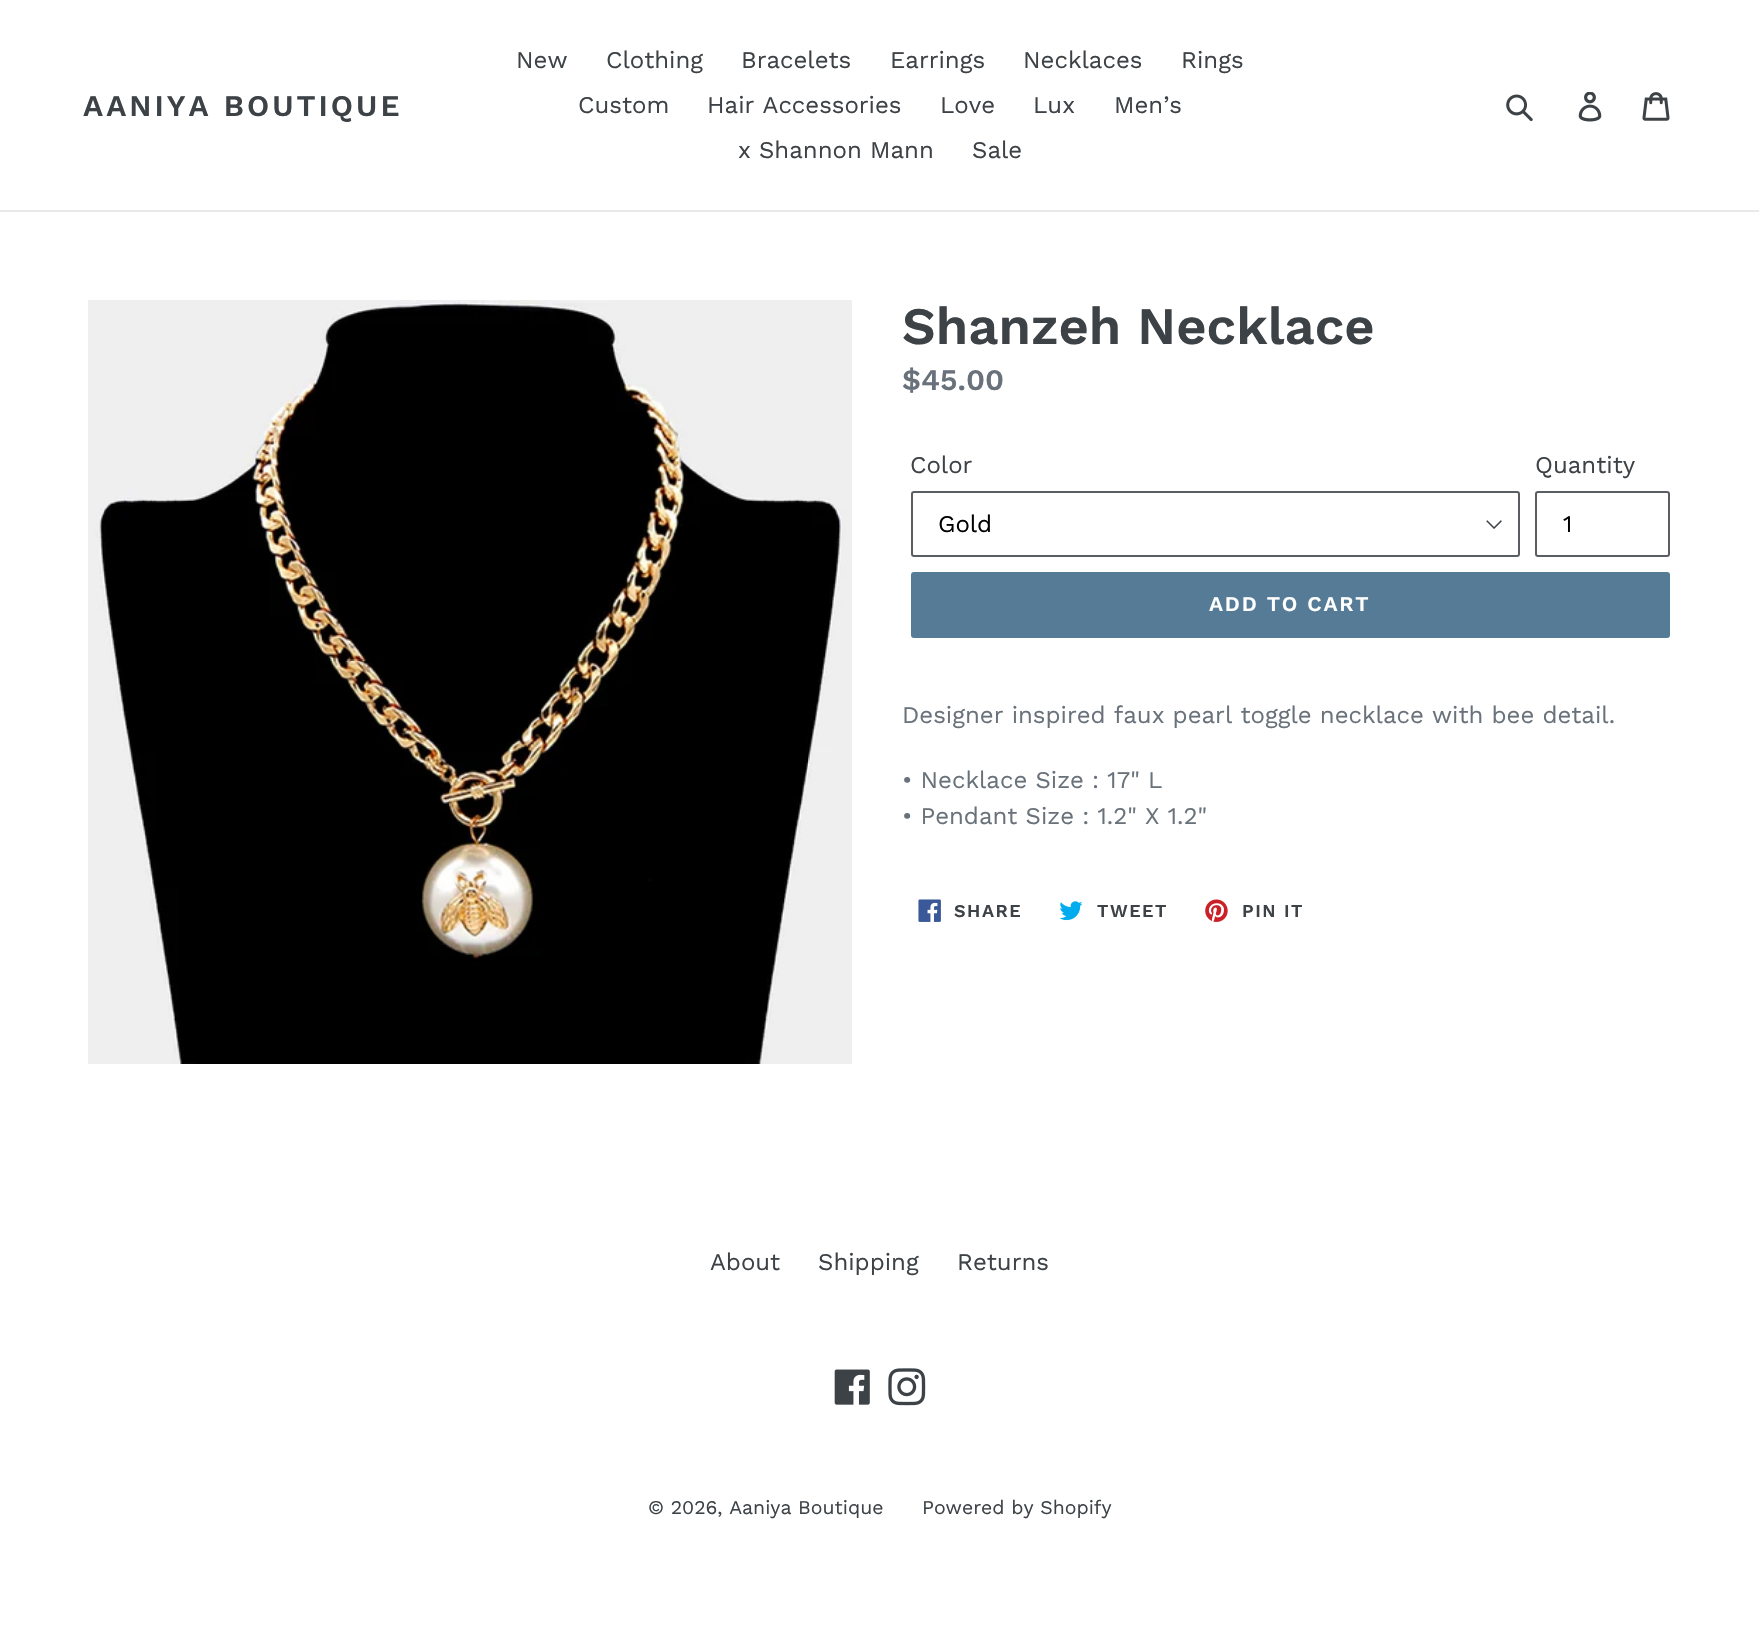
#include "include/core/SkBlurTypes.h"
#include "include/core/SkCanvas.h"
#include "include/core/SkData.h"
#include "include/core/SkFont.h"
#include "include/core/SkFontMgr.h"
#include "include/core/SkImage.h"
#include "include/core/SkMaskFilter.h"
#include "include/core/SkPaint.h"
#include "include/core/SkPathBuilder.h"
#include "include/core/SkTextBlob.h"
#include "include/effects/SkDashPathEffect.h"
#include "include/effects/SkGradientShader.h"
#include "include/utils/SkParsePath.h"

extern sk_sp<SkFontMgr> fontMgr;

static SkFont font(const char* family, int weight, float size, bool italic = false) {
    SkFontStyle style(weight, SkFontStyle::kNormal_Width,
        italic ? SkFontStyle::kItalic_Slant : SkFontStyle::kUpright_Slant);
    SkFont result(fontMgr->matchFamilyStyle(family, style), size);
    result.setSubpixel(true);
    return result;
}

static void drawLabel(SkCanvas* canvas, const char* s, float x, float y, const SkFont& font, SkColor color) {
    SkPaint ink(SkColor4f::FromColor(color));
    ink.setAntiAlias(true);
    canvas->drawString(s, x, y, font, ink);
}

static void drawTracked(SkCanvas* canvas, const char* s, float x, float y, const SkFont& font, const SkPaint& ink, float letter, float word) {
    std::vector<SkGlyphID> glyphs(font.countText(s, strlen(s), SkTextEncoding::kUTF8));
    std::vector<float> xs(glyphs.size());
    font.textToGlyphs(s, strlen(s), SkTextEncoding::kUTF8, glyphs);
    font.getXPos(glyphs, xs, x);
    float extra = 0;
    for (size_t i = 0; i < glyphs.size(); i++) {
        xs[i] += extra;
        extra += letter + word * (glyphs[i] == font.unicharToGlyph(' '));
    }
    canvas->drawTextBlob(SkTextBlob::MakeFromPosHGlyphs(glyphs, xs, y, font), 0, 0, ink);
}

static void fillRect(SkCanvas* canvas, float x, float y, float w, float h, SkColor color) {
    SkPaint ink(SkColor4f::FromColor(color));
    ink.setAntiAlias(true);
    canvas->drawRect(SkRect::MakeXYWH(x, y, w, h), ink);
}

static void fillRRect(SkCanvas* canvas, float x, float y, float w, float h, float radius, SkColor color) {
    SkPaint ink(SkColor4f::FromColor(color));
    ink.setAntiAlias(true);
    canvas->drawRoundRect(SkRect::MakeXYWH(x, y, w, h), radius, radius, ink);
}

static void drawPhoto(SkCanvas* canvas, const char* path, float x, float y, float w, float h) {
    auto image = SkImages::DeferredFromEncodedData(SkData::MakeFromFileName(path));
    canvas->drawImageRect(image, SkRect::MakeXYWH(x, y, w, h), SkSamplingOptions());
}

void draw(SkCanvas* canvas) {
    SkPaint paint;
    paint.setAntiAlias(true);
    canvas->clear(0xFFFFFFFF);
    fillRect(canvas, 0, 210, 1759, 2, 0xFFE8E9EB);
    SkFont font1 = font("Work Sans", 600, 30);
    paint.setColor(0xFF3D4246);
    drawTracked(canvas, "AANIYA BOUTIQUE", 83, 116, font1, paint, 3, 0);
    SkFont font2 = font("Work Sans", 400, 24);
    drawLabel(canvas, "New", 516, 68, font2, 0xFF3D4246);
    drawLabel(canvas, "Clothing", 606, 68, font2, 0xFF3D4246);
    drawLabel(canvas, "Bracelets", 741, 68, font2, 0xFF3D4246);
    drawLabel(canvas, "Earrings", 890, 68, font2, 0xFF3D4246);
    drawLabel(canvas, "Necklaces", 1023, 68, font2, 0xFF3D4246);
    drawLabel(canvas, "Rings", 1181, 68, font2, 0xFF3D4246);
    drawLabel(canvas, "Custom", 578, 113, font2, 0xFF3D4246);
    drawLabel(canvas, "Hair Accessories", 707, 113, font2, 0xFF3D4246);
    drawLabel(canvas, "Love", 940, 113, font2, 0xFF3D4246);
    drawLabel(canvas, "Lux", 1033, 113, font2, 0xFF3D4246);
    drawLabel(canvas, "Men’s", 1114, 113, font2, 0xFF3D4246);
    drawLabel(canvas, "x Shannon Mann", 738, 158, font2, 0xFF3D4246);
    drawLabel(canvas, "Sale", 972, 158, font2, 0xFF3D4246);
    drawPhoto(canvas, "assets/img1.png", 1506, 94, 27, 28);
    drawPhoto(canvas, "assets/img2.png", 1578, 92, 24, 30);
    drawPhoto(canvas, "assets/img3.png", 1642, 92, 28, 29);
    drawPhoto(canvas, "assets/img4.png", 88, 300, 764, 764);
    SkFont font3 = font("Work Sans", 600, 52.5f);
    drawLabel(canvas, "Shanzeh Necklace", 902, 344, font3, 0xFF3D4246);
    drawLabel(canvas, "$45.00", 902, 390, font1, 0xFF69727B);
    drawLabel(canvas, "Color", 910, 473, font2, 0xFF3D4246);
    drawPhoto(canvas, "assets/img5.png", 1486, 520, 16, 9);
    paint.setStroke(true);
    paint.setStrokeWidth(2);
    paint.setColor(0xFF5A5E62);
    canvas->drawRoundRect(SkRect::MakeXYWH(912, 492, 607, 64), 2, 2, paint);
    drawLabel(canvas, "Gold", 938, 532, font2, 0xFF000000);
    drawLabel(canvas, "Quantity", 1535, 473, font2, 0xFF3D4246);
    canvas->drawRoundRect(SkRect::MakeXYWH(1536, 492, 133, 64), 2, 2, paint);
    drawLabel(canvas, "1", 1563, 532, font2, 0xFF000000);
    fillRRect(canvas, 911, 572, 759, 66, 3, 0xFF557B97);
    SkFont font4 = font("Work Sans", 600, 21);
    paint.setStroke(false);
    paint.setColor(0xFFFFFFFF);
    drawTracked(canvas, "ADD TO CART", 1209, 611, font4, paint, 1.75f, 0);
    drawLabel(canvas, "Designer inspired faux pearl toggle necklace with bee detail.", 902, 723, font2, 0xFF69727B);
    drawLabel(canvas, "• Necklace Size : 17\" L", 902, 788, font2, 0xFF69727B);
    drawLabel(canvas, "• Pendant Size : 1.2\" X 1.2\"", 902, 824, font2, 0xFF69727B);
    drawPhoto(canvas, "assets/img6.png", 918, 899, 23, 23);
    SkFont font5 = font("Work Sans", 600, 18);
    paint.setColor(0xFF3D4246);
    drawTracked(canvas, "SHARE", 954, 917, font5, paint, 1.5f, 0);
    drawPhoto(canvas, "assets/img7.png", 1059, 901, 24, 20);
    drawTracked(canvas, "TWEET", 1097, 917, font5, paint, 1.5f, 0);
    drawPhoto(canvas, "assets/img8.png", 1205, 899, 23, 23);
    drawTracked(canvas, "PIN IT", 1242, 917, font5, paint, 1.5f, 0);
    drawLabel(canvas, "About", 710, 1270, font2, 0xFF3D4246);
    drawLabel(canvas, "Shipping", 818, 1270, font2, 0xFF3D4246);
    drawLabel(canvas, "Returns", 957, 1270, font2, 0xFF3D4246);
    drawPhoto(canvas, "assets/img9.png", 834, 1369, 36, 36);
    drawPhoto(canvas, "assets/img10.png", 888, 1368, 38, 38);
    SkFont font6 = font("Work Sans", 400, 19.5f);
    drawLabel(canvas, "© 2026, Aaniya Boutique", 648, 1514, font6, 0xFF3D4246);
    drawLabel(canvas, "Powered by Shopify", 922, 1514, font6, 0xFF3D4246);
}
